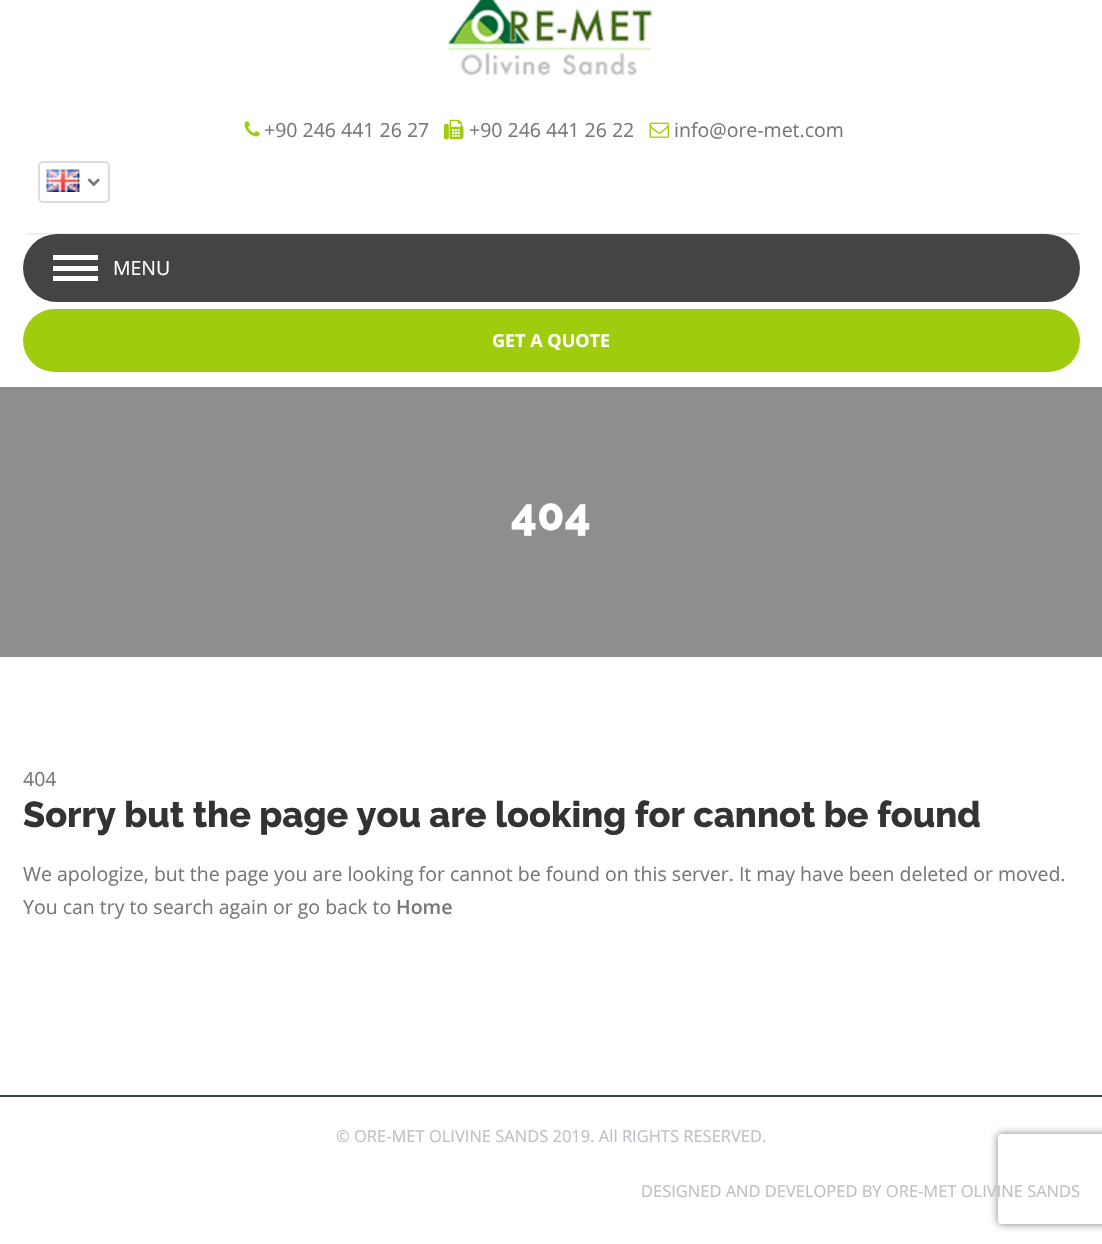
#include "include/core/SkBlurTypes.h"
#include "include/core/SkCanvas.h"
#include "include/core/SkData.h"
#include "include/core/SkFont.h"
#include "include/core/SkFontMgr.h"
#include "include/core/SkImage.h"
#include "include/core/SkMaskFilter.h"
#include "include/core/SkPaint.h"
#include "include/core/SkPathBuilder.h"
#include "include/core/SkTextBlob.h"
#include "include/effects/SkDashPathEffect.h"
#include "include/effects/SkGradientShader.h"
#include "include/utils/SkParsePath.h"

extern sk_sp<SkFontMgr> fontMgr;

static SkFont font(const char* family, int weight, float size, bool italic = false) {
    SkFontStyle style(weight, SkFontStyle::kNormal_Width,
        italic ? SkFontStyle::kItalic_Slant : SkFontStyle::kUpright_Slant);
    SkFont result(fontMgr->matchFamilyStyle(family, style), size);
    result.setSubpixel(true);
    return result;
}

static void drawLabel(SkCanvas* canvas, const char* s, float x, float y, const SkFont& font, SkColor color) {
    SkPaint ink(SkColor4f::FromColor(color));
    ink.setAntiAlias(true);
    canvas->drawString(s, x, y, font, ink);
}

static void fillRect(SkCanvas* canvas, float x, float y, float w, float h, SkColor color) {
    SkPaint ink(SkColor4f::FromColor(color));
    ink.setAntiAlias(true);
    canvas->drawRect(SkRect::MakeXYWH(x, y, w, h), ink);
}

static void fillRRect(SkCanvas* canvas, float x, float y, float w, float h, float radius, SkColor color) {
    SkPaint ink(SkColor4f::FromColor(color));
    ink.setAntiAlias(true);
    canvas->drawRoundRect(SkRect::MakeXYWH(x, y, w, h), radius, radius, ink);
}

static void drawPhoto(SkCanvas* canvas, const char* path, float x, float y, float w, float h) {
    auto image = SkImages::DeferredFromEncodedData(SkData::MakeFromFileName(path));
    canvas->drawImageRect(image, SkRect::MakeXYWH(x, y, w, h), SkSamplingOptions());
}

static SkPath parsePath(const char* data, bool evenOdd = false) {
    SkPath result = *SkParsePath::FromSVGString(data);
    if (evenOdd) result.setFillType(SkPathFillType::kEvenOdd);
    return result;
}

void draw(SkCanvas* canvas) {
    SkPaint paint;
    paint.setAntiAlias(true);
    canvas->clear(0xFFFFFFFF);
    drawPhoto(canvas, "assets/img1.png", 448, 0, 205, 75);
    drawPhoto(canvas, "assets/img2.png", 244, 121, 16, 16);
    SkFont font1 = font("Open Sans", 400, 19.5f);
    drawLabel(canvas, "+90 246 441 26 27", 264, 137, font1, 0xFF777777);
    drawPhoto(canvas, "assets/img3.png", 444, 119, 20, 21);
    drawLabel(canvas, "+90 246 441 26 22", 469, 137, font1, 0xFF777777);
    drawPhoto(canvas, "assets/img4.png", 649, 122, 20, 16);
    drawLabel(canvas, "info@ore-met.com", 674, 137, font1, 0xFF777777);
    paint.setStroke(true);
    paint.setStrokeWidth(2);
    paint.setColor(0xFFDDDDDD);
    canvas->drawRoundRect(SkRect::MakeXYWH(39, 162, 70, 40), 4, 4, paint);
    drawPhoto(canvas, "assets/img5.png", 46, 169, 34, 23);
    drawPhoto(canvas, "assets/img6.png", 87, 178, 13, 9);
    fillRect(canvas, 26, 233, 1053, 1, 0xFFEEEEEE);
    fillRect(canvas, 26, 234, 1053, 1, 0xFFF0F0F0);
    fillRRect(canvas, 23, 234, 1057, 68, 34, 0xFF444444);
    fillRect(canvas, 53, 276, 45, 5, 0xFFFFFFFF);
    fillRect(canvas, 53, 266, 45, 5, 0xFFFFFFFF);
    fillRect(canvas, 53, 255, 45, 5, 0xFFFFFFFF);
    drawLabel(canvas, "MENU", 113, 275, font1, 0xFFFFFFFF);
    fillRRect(canvas, 23, 309, 1057, 63, 31.5f, 0xFFA0CC0E);
    SkFont font2 = font("Open Sans", 700, 18);
    drawLabel(canvas, "GET A QUOTE", 492, 347, font2, 0xFFFFFFFF);
    fillRect(canvas, 0, 387, 1102, 270, 0xFF8E8E8E);
    SkFont font3 = font("Raleway", 100, 45);
    drawLabel(canvas, "404", 511, 530, font3, 0xFFFFFFFF);
    drawLabel(canvas, "404", 23, 786, font1, 0xFF777777);
    SkFont font4 = font("Raleway", 100, 36);
    drawLabel(canvas, "Sorry but the page you are looking for cannot be found", 23, 827, font4, 0xFF333333);
    drawLabel(canvas, "We apologize, but the page you are looking for cannot be found on this server. It may have been deleted or moved.", 23, 881, font1, 0xFF777777);
    drawLabel(canvas, "You can try to search again or go back to", 23, 914, font1, 0xFF777777);
    SkFont font5 = font("Open Sans", 600, 19.5f);
    drawLabel(canvas, "Home", 396, 914, font5, 0xFF777777);
    canvas->save();
    canvas->clipPath(parsePath("M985 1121H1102V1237H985ZM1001 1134H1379C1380.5 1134 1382 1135.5 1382 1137V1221C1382 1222.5 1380.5 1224 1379 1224H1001C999.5 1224 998 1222.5 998 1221V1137C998 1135.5 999.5 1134 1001 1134Z", true), true);
    paint.setStroke(false);
    paint.setColor(0xFF808080);
    paint.setMaskFilter(SkMaskFilter::MakeBlur(kNormal_SkBlurStyle, 4));
    canvas->drawRoundRect(SkRect::MakeXYWH(998, 1134, 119, 90), 3, 3, paint);
    paint.setMaskFilter(nullptr);
    canvas->restore();
    fillRect(canvas, 0, 1095, 1102, 2, 0xFF384653);
    SkFont font6 = font("Open Sans", 400, 16.5f);
    drawLabel(canvas, "© ORE-MET OLIVINE SANDS 2019. All RIGHTS RESERVED.", 336, 1142, font6, 0xFFBCC0C4);
    drawLabel(canvas, "DESIGNED AND DEVELOPED BY ORE-MET OLIVINE SANDS", 641, 1197, font6, 0xFFBCC0C4);
}
